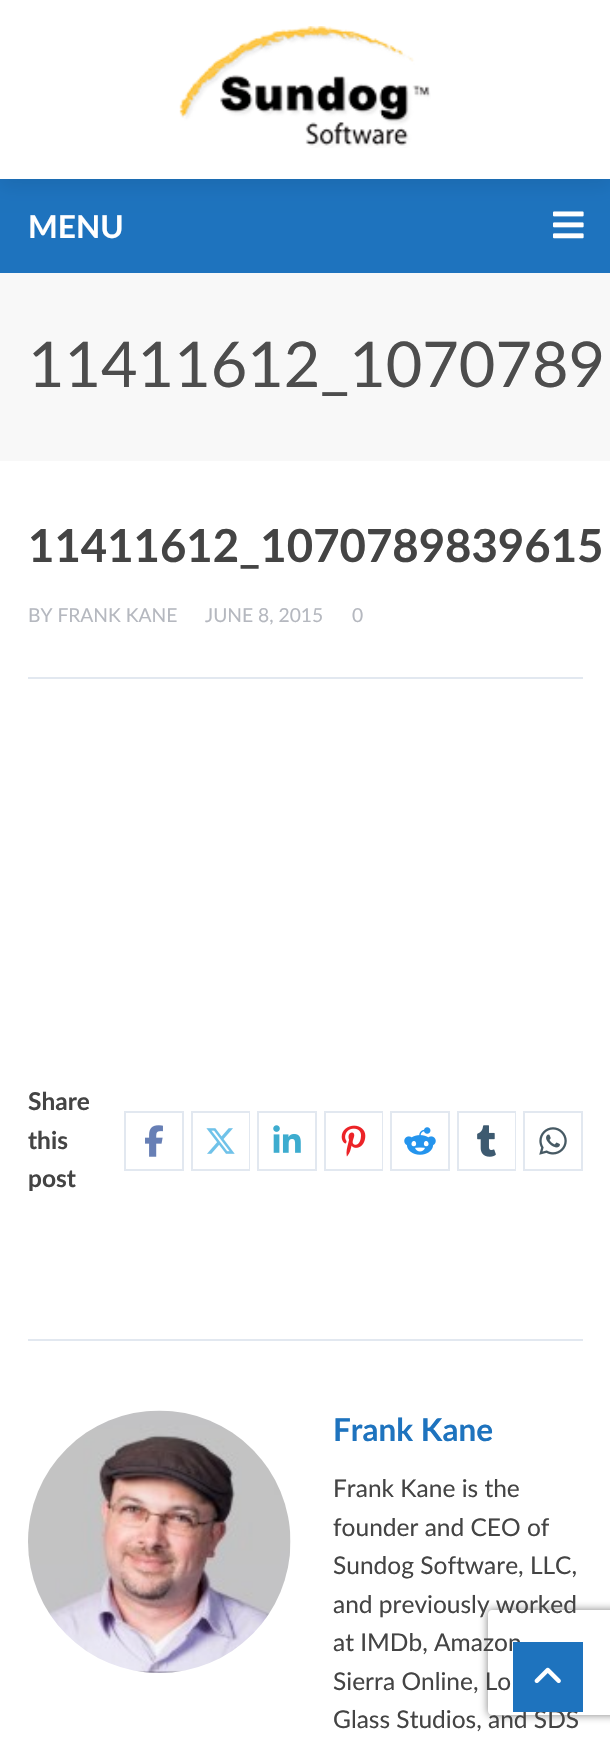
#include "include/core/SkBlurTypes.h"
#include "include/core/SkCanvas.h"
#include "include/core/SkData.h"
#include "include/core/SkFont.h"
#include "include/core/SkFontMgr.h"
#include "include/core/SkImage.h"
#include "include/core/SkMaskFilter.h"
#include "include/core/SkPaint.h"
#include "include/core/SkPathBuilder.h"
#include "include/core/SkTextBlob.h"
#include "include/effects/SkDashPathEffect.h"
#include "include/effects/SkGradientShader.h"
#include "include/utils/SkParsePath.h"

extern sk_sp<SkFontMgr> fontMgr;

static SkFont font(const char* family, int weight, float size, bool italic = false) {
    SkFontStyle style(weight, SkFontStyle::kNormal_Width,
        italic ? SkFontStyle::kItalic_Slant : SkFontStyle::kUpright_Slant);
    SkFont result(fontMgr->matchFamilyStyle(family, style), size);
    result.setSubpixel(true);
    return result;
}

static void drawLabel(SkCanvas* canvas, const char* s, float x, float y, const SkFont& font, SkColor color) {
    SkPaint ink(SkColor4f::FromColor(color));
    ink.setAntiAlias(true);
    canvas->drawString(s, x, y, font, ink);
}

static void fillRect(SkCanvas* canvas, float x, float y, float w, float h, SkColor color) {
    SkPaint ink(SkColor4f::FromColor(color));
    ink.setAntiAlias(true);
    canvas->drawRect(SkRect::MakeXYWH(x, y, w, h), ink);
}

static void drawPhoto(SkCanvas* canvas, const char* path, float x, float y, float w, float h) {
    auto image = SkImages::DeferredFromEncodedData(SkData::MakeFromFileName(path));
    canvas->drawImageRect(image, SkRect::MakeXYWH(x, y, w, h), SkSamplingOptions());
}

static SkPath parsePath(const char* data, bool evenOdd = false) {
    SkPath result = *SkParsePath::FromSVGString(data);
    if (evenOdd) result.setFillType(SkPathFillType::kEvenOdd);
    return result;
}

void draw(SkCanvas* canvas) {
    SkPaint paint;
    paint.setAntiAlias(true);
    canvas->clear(0xFFFFFFFF);
    fillRect(canvas, 0, 179, 610, 94, 0xFF1E73BE);
    drawPhoto(canvas, "assets/img2.png", 553, 211, 31, 28);
    paint.setColor(0x14000000);
    paint.setMaskFilter(SkMaskFilter::MakeBlur(kNormal_SkBlurStyle, 9));
    canvas->drawRect(SkRect::MakeXYWH(0, 7, 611, 179), paint);
    paint.setMaskFilter(nullptr);
    fillRect(canvas, 0, 0, 610, 179, 0xFFFFFFFF);
    drawPhoto(canvas, "assets/img1.png", 179, 26, 252, 122);
    SkFont font1 = font("Lato", 700, 31.5f);
    drawLabel(canvas, "MENU", 28, 238, font1, 0xFFFFFFFF);
    fillRect(canvas, 0, 273, 610, 188, 0xFFF8F8F8);
    SkFont font2 = font("Lato", 400, 63);
    drawLabel(canvas, "11411612_1070789", 28, 387, font2, 0xFF4D4D4D);
    fillRect(canvas, 28, 1339, 555, 2, 0xFFE2E8F0);
    SkFont font3 = font("Lato", 700, 45.5f);
    drawLabel(canvas, "11411612_1070789839615", 28, 562, font3, 0xFF444444);
    fillRect(canvas, 28, 677, 555, 2, 0xFFE2E8F0);
    SkFont font4 = font("Lato", 400, 19.25f);
    drawLabel(canvas, "BY FRANK KANE", 28, 622, font4, 0xFFB5B8BF);
    drawLabel(canvas, "JUNE 8, 2015", 205, 622, font4, 0xFFB5B8BF);
    drawLabel(canvas, "0", 352, 622, font4, 0xFFB5B8BF);
    SkFont font5 = font("Lato", 700, 24.5f);
    drawLabel(canvas, "Share", 28, 1110, font5, 0xFF444444);
    drawLabel(canvas, "this", 28, 1149, font5, 0xFF444444);
    drawLabel(canvas, "post", 28, 1187, font5, 0xFF444444);
    paint.setStroke(true);
    paint.setStrokeWidth(2);
    paint.setColor(0xFFE2E8F0);
    canvas->drawRect(SkRect::MakeXYWH(125, 1112, 58, 58), paint);
    drawPhoto(canvas, "assets/img3.png", 145, 1125, 18, 32);
    canvas->drawRect(SkRect::MakeXYWH(192, 1112, 57, 58), paint);
    fillRect(canvas, 248, 1113, 1, 56, 0xFFFFFFFF);
    drawPhoto(canvas, "assets/img4.png", 206, 1128, 29, 26);
    canvas->drawRect(SkRect::MakeXYWH(258, 1112, 58, 58), paint);
    drawPhoto(canvas, "assets/img5.png", 273, 1125, 28, 28);
    canvas->drawRect(SkRect::MakeXYWH(325, 1112, 57, 58), paint);
    fillRect(canvas, 381, 1113, 1, 56, 0xFFFFFFFF);
    drawPhoto(canvas, "assets/img6.png", 341, 1125, 25, 32);
    canvas->drawRect(SkRect::MakeXYWH(391, 1112, 58, 58), paint);
    drawPhoto(canvas, "assets/img7.png", 404, 1127, 32, 28);
    canvas->drawRect(SkRect::MakeXYWH(458, 1112, 57, 58), paint);
    fillRect(canvas, 514, 1113, 1, 56, 0xFFFFFFFF);
    drawPhoto(canvas, "assets/img8.png", 477, 1125, 19, 32);
    canvas->drawRect(SkRect::MakeXYWH(524, 1112, 58, 58), paint);
    drawPhoto(canvas, "assets/img9.png", 539, 1127, 28, 28);
    drawPhoto(canvas, "assets/img10.png", 28, 1410, 263, 263);
    drawLabel(canvas, "Frank Kane", 333, 1441, font1, 0xFF1E73BE);
    SkFont font6 = font("Lato", 400, 24.5f);
    drawLabel(canvas, "Frank Kane is the", 333, 1497, font6, 0xFF444444);
    drawLabel(canvas, "founder and CEO of", 333, 1536, font6, 0xFF444444);
    drawLabel(canvas, "Sundog Software, LLC,", 333, 1574, font6, 0xFF444444);
    canvas->save();
    canvas->clipPath(parsePath("M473 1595H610V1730H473ZM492 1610H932C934 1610 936 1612 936 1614V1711C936 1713 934 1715 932 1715H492C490 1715 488 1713 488 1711V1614C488 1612 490 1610 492 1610Z", true), true);
    paint.setStroke(false);
    paint.setColor(0xFF808080);
    paint.setMaskFilter(SkMaskFilter::MakeBlur(kNormal_SkBlurStyle, 4.5f));
    canvas->drawRoundRect(SkRect::MakeXYWH(488, 1610, 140, 105), 4, 4, paint);
    paint.setMaskFilter(nullptr);
    canvas->restore();
    drawLabel(canvas, "and previously worked", 333, 1613, font6, 0xFF444444);
    drawLabel(canvas, "at IMDb, Amazon", 333, 1651, font6, 0xFF444444);
    drawLabel(canvas, "Sierra Online, Lo", 333, 1690, font6, 0xFF444444);
    drawLabel(canvas, "Glass Studios, and SDS", 333, 1728, font6, 0xFF444444);
    fillRect(canvas, 513, 1642, 70, 70, 0xFF1E73BE);
    drawPhoto(canvas, "assets/img11.png", 534, 1667, 27, 17);
}
